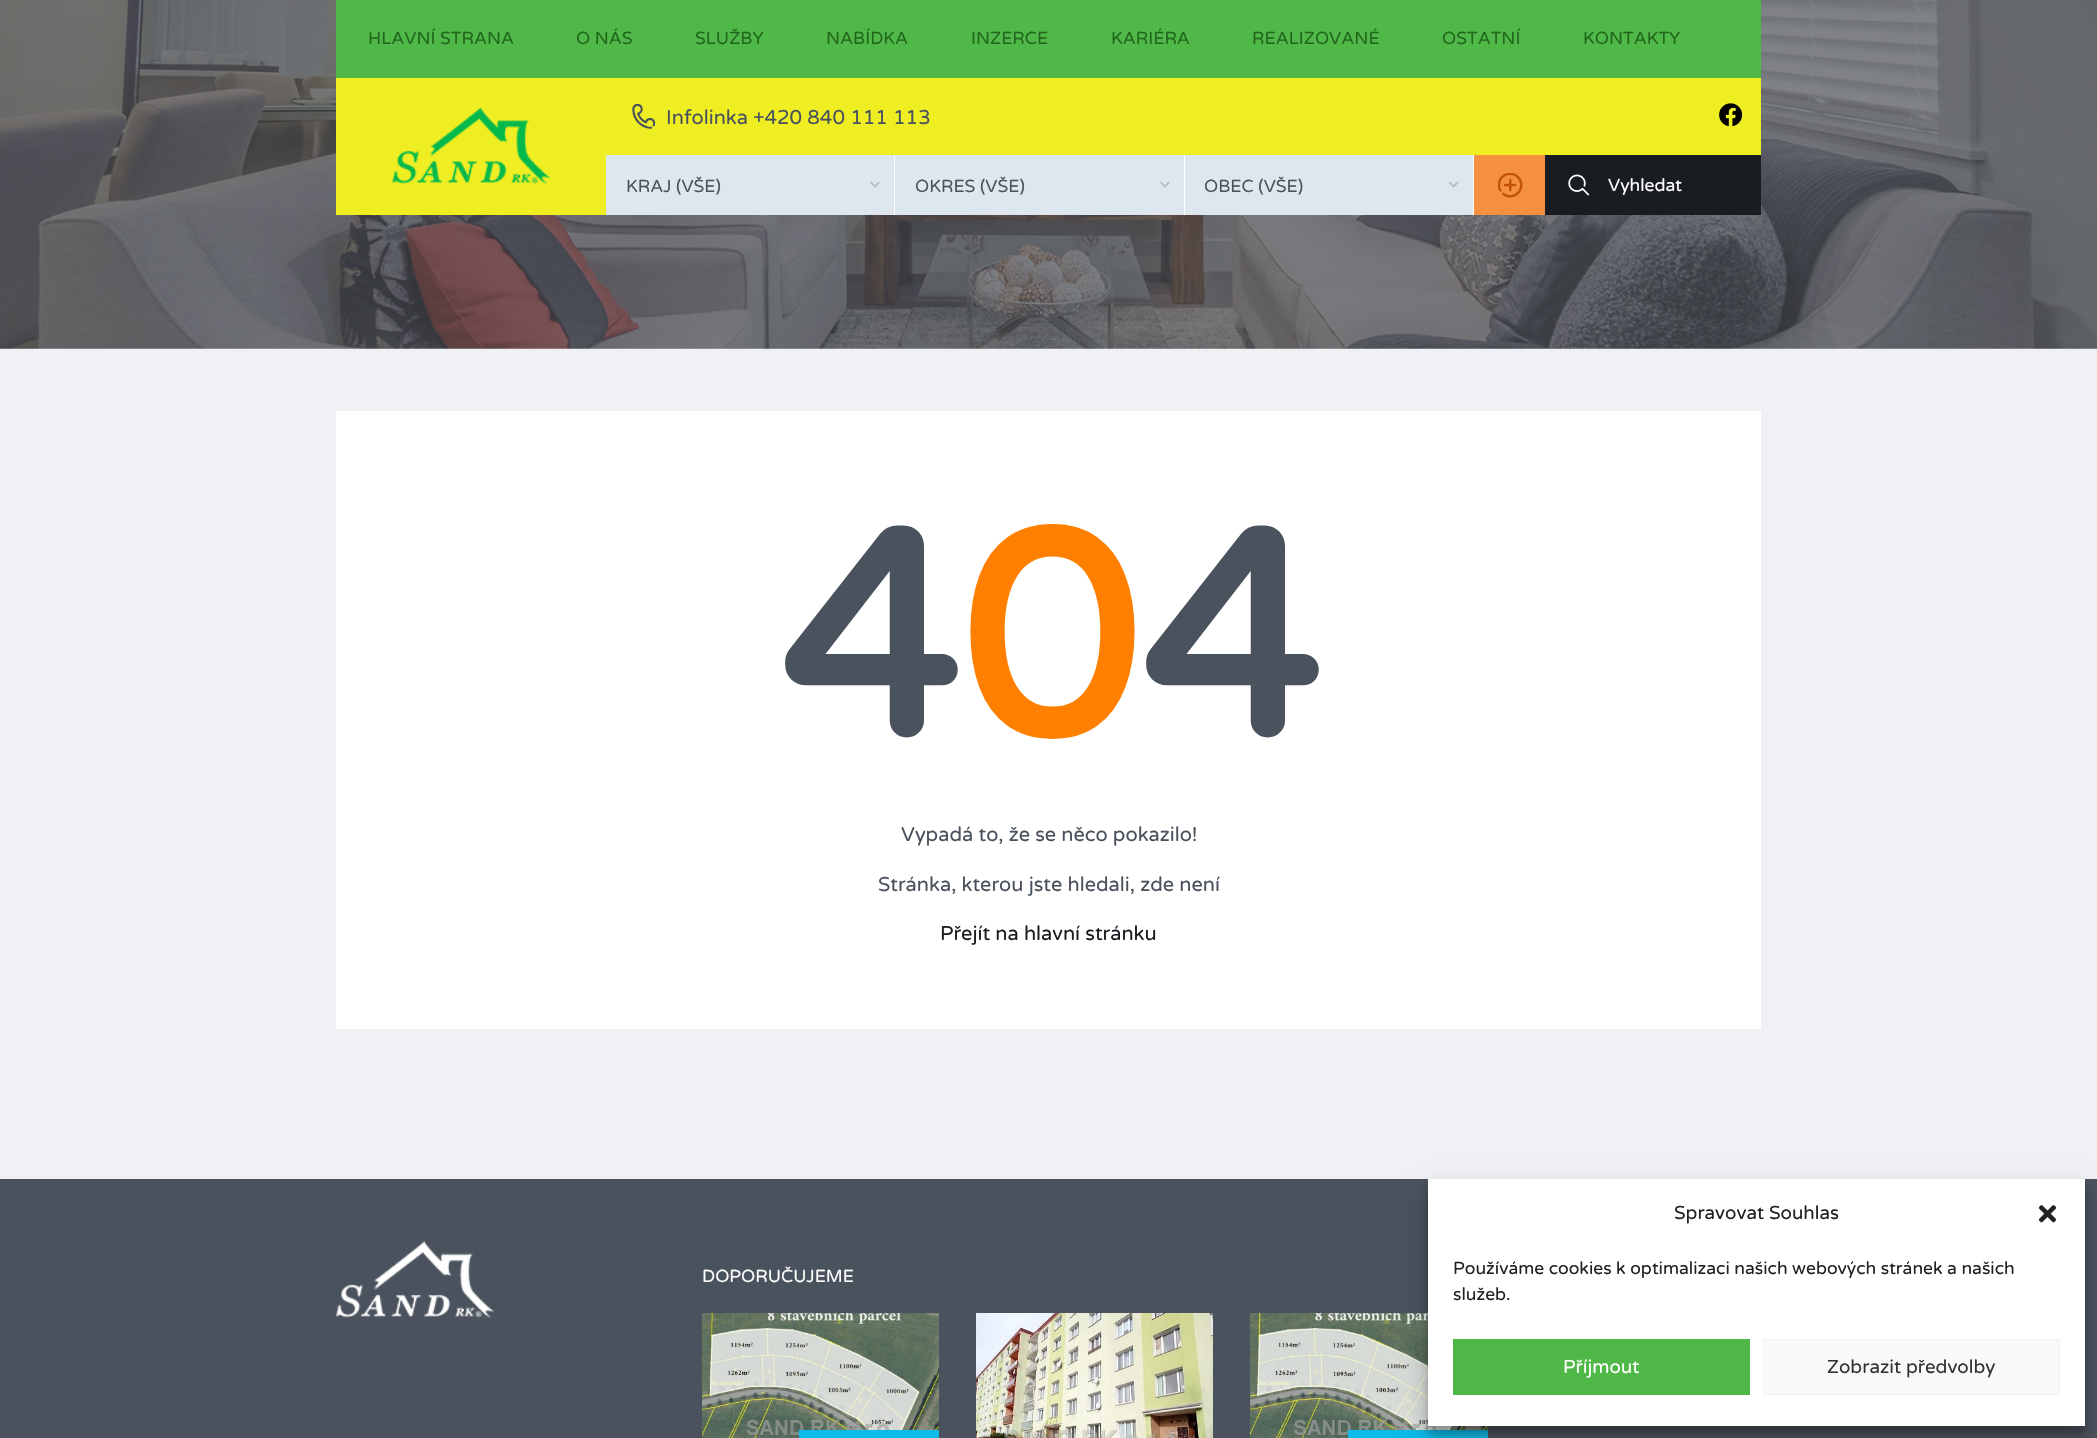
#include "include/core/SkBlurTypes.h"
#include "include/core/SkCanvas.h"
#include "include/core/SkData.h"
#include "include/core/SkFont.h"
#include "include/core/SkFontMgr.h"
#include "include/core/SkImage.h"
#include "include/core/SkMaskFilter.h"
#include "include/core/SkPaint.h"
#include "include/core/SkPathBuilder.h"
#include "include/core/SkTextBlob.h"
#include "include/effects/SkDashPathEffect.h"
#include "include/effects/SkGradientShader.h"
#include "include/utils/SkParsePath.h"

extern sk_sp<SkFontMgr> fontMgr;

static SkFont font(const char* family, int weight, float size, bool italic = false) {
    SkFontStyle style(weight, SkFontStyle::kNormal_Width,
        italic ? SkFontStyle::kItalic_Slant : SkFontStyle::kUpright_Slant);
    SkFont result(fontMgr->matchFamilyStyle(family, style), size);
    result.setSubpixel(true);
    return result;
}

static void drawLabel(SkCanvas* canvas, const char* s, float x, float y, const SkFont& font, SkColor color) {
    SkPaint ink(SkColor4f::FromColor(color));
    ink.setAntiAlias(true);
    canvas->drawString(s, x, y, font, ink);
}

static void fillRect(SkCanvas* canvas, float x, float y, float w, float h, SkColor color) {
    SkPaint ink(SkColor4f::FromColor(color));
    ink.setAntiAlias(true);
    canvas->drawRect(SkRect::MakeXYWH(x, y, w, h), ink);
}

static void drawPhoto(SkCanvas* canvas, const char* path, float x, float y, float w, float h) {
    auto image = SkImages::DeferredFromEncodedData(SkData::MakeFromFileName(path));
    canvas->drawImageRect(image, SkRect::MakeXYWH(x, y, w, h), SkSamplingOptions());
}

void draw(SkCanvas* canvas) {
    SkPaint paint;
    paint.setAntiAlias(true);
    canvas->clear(0xFFEFF1F5);
    drawPhoto(canvas, "assets/img1.png", 0, 0, 2097, 349);
    fillRect(canvas, 336, 0, 1425, 78, 0xFF50B848);
    SkFont font1 = font("Varela Round", 400, 17.5f);
    drawLabel(canvas, "HLAVNÍ STRANA", 368, 44, font1, 0xFF20671B);
    drawLabel(canvas, "O NÁS", 576, 44, font1, 0xFF20671B);
    drawLabel(canvas, "SLUŽBY", 695, 44, font1, 0xFF20671B);
    drawLabel(canvas, "NABÍDKA", 826, 44, font1, 0xFF20671B);
    drawLabel(canvas, "INZERCE", 971, 44, font1, 0xFF20671B);
    drawLabel(canvas, "KARIÉRA", 1111, 44, font1, 0xFF20671B);
    drawLabel(canvas, "REALIZOVANÉ", 1252, 44, font1, 0xFF20671B);
    drawLabel(canvas, "OSTATNÍ", 1442, 44, font1, 0xFF20671B);
    drawLabel(canvas, "KONTAKTY", 1583, 44, font1, 0xFF20671B);
    fillRect(canvas, 336, 78, 270, 137, 0xFFEEEE22);
    drawPhoto(canvas, "assets/img2.png", 392, 107, 158, 77);
    fillRect(canvas, 606, 78, 1155, 77, 0xFFEEEE22);
    drawPhoto(canvas, "assets/img3.png", 632, 104, 24, 25);
    SkFont font2 = font("Varela Round", 400, 20);
    drawLabel(canvas, "Infolinka +420 840 111 113", 666, 124, font2, 0xFF4A525D);
    drawPhoto(canvas, "assets/img4.png", 1719, 103, 24, 24);
    fillRect(canvas, 894, 155, 580, 60, 0xFFFFFFFF);
    fillRect(canvas, 606, 155, 288, 60, 0xFFDFE7EE);
    drawLabel(canvas, "KRAJ (VŠE)", 626, 192, font1, 0xFF4A525D);
    drawPhoto(canvas, "assets/img5.png", 870, 181, 10, 7);
    fillRect(canvas, 895, 155, 289, 60, 0xFFDFE7EE);
    drawLabel(canvas, "OKRES (VŠE)", 915, 192, font1, 0xFF4A525D);
    drawPhoto(canvas, "assets/img5.png", 1160, 181, 10, 7);
    fillRect(canvas, 1185, 155, 288, 60, 0xFFDFE7EE);
    drawLabel(canvas, "OBEC (VŠE)", 1204, 192, font1, 0xFF4A525D);
    drawPhoto(canvas, "assets/img6.png", 1449, 181, 10, 7);
    fillRect(canvas, 1474, 155, 71, 60, 0xFFF4903F);
    drawPhoto(canvas, "assets/img7.png", 1498, 173, 25, 25);
    fillRect(canvas, 1545, 155, 216, 60, 0xFF191C20);
    drawPhoto(canvas, "assets/img8.png", 1568, 174, 22, 22);
    drawLabel(canvas, "Vyhledat", 1608, 191, font1, 0xFFFFFFFF);
    fillRect(canvas, 336, 411, 1425, 618, 0xFFFFFFFF);
    SkFont font3 = font("Varela Round", 700, 288);
    drawLabel(canvas, "4", 778, 736, font3, 0xFF4A525D);
    drawLabel(canvas, "0", 958, 736, font3, 0xFFFF8000);
    drawLabel(canvas, "4", 1139, 736, font3, 0xFF4A525D);
    drawLabel(canvas, "Vypadá to, že se něco pokazilo!", 901, 841, font2, 0xFF4A525D);
    drawLabel(canvas, "Stránka, kterou jste hledali, zde není", 878, 891, font2, 0xFF4A525D);
    drawLabel(canvas, "Přejít na hlavní stránku", 940, 940, font2, 0xFF191C20);
    fillRect(canvas, 0, 1179, 2097, 259, 0xFF4A525D);
    drawPhoto(canvas, "assets/img9.png", 336, 1241, 158, 77);
    drawLabel(canvas, "DOPORUČUJEME", 702, 1282, font1, 0xFFFFFFFF);
    drawPhoto(canvas, "assets/img10.png", 702, 1313, 237, 125);
    fillRect(canvas, 799, 1430, 140, 8, 0xFF0DBAE8);
    drawPhoto(canvas, "assets/img11.png", 976, 1313, 237, 125);
    drawPhoto(canvas, "assets/img12.png", 1250, 1313, 238, 125);
    fillRect(canvas, 1348, 1430, 140, 8, 0xFF0DBAE8);
    paint.setColor(0x3B000000);
    paint.setMaskFilter(SkMaskFilter::MakeBlur(kNormal_SkBlurStyle, 4));
    canvas->drawRect(SkRect::MakeXYWH(1428, 1186, 657, 248), paint);
    paint.setMaskFilter(nullptr);
    paint.setColor(0x30000000);
    paint.setMaskFilter(SkMaskFilter::MakeBlur(kNormal_SkBlurStyle, 12.5f));
    canvas->drawRect(SkRect::MakeXYWH(1428, 1191, 657, 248), paint);
    paint.setMaskFilter(nullptr);
    fillRect(canvas, 1428, 1179, 657, 247, 0xFFFFFFFF);
    SkFont font4 = font("Varela Round", 400, 18.75f);
    drawLabel(canvas, "Spravovat Souhlas", 1674, 1219, font4, 0xFF222222);
    drawPhoto(canvas, "assets/img13.png", 2038, 1205, 19, 18);
    drawLabel(canvas, "Používáme cookies k optimalizaci našich webových stránek a našich", 1453, 1274, font1, 0xFF222222);
    drawLabel(canvas, "služeb.", 1453, 1300, font1, 0xFF222222);
    fillRect(canvas, 1453, 1339, 297, 56, 0xFF50B848);
    drawLabel(canvas, "Příjmout", 1563, 1373, font4, 0xFFFFFFFF);
    paint.setColor(0xFFF9F9F9);
    canvas->drawRect(SkRect::MakeXYWH(1763.5f, 1339.5f, 296, 55), paint);
    paint.setStroke(true);
    paint.setStrokeWidth(1);
    paint.setColor(0xFFF2F2F2);
    canvas->drawRect(SkRect::MakeXYWH(1763.5f, 1339.5f, 296, 55), paint);
    drawLabel(canvas, "Zobrazit předvolby", 1827, 1373, font4, 0xFF333333);
}
